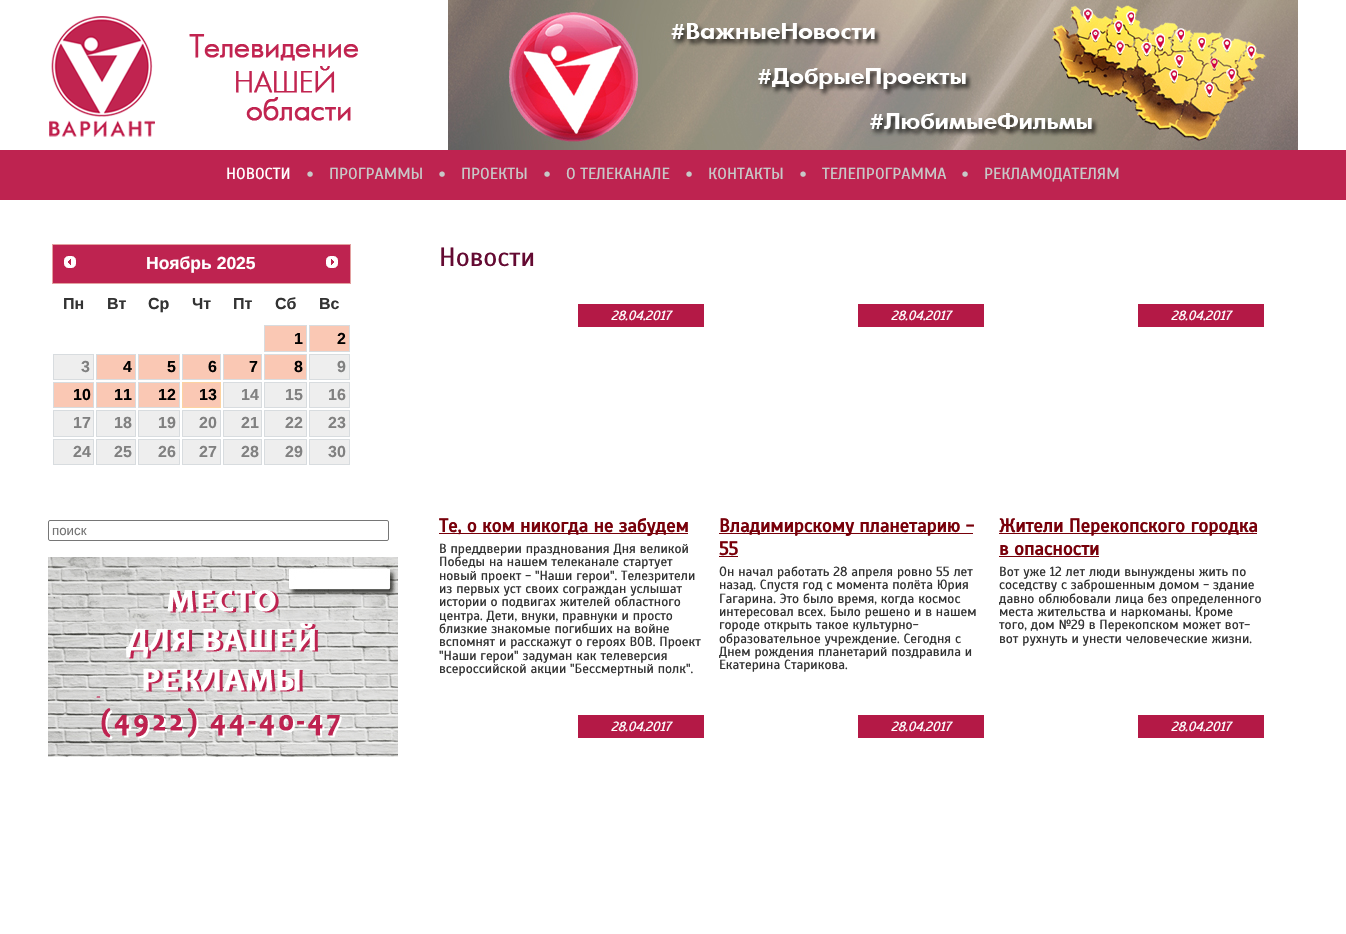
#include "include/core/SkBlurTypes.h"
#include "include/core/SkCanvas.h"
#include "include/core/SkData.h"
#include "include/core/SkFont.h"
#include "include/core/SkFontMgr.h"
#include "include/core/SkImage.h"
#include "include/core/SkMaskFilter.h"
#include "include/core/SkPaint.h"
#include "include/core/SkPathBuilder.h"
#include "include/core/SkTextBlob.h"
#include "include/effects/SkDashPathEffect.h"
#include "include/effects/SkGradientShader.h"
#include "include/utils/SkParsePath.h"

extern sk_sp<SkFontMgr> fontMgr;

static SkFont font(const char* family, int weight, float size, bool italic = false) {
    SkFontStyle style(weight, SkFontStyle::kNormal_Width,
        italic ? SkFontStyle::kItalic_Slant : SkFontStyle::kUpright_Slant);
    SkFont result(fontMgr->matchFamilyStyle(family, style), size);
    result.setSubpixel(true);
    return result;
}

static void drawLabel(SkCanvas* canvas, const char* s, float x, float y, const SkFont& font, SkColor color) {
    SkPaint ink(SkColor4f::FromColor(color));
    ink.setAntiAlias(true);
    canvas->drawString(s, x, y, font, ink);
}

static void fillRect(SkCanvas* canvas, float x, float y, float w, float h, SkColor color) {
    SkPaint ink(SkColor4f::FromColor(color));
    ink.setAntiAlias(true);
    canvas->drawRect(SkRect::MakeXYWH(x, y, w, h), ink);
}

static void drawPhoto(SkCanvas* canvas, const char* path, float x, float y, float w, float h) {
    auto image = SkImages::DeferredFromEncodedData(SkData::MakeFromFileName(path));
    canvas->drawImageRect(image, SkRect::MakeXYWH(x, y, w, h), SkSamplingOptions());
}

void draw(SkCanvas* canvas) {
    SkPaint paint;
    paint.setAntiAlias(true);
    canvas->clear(0xFFFFFFFF);
    drawPhoto(canvas, "assets/img1.png", 49, 16, 310, 121);
    drawPhoto(canvas, "assets/img2.png", 448, 0, 850, 150);
    fillRect(canvas, 0, 150, 1346, 50, 0xFFBE2350);
    SkFont font1 = font("Scada", 400, 16);
    drawLabel(canvas, "НОВОСТИ", 226, 179, font1, 0xFFFFFFFF);
    SkFont font2 = font("Scada", 400, 22);
    drawLabel(canvas, "•", 306, 181, font2, 0xFFC8C8C8);
    drawLabel(canvas, "ПРОГРАММЫ", 329, 179, font1, 0xFFC8C8C8);
    drawLabel(canvas, "•", 438, 181, font2, 0xFFC8C8C8);
    drawLabel(canvas, "ПРОЕКТЫ", 461, 179, font1, 0xFFC8C8C8);
    drawLabel(canvas, "•", 543, 181, font2, 0xFFC8C8C8);
    drawLabel(canvas, "О ТЕЛЕКАНАЛЕ", 566, 179, font1, 0xFFC8C8C8);
    drawLabel(canvas, "•", 685, 181, font2, 0xFFC8C8C8);
    drawLabel(canvas, "КОНТАКТЫ", 708, 179, font1, 0xFFC8C8C8);
    drawLabel(canvas, "•", 799, 181, font2, 0xFFC8C8C8);
    drawLabel(canvas, "ТЕЛЕПРОГРАММА", 822, 179, font1, 0xFFC8C8C8);
    drawLabel(canvas, "•", 961, 181, font2, 0xFFC8C8C8);
    drawLabel(canvas, "РЕКЛАМОДАТЕЛЯМ", 984, 179, font1, 0xFFC8C8C8);
    paint.setColor(0xFFBE2350);
    canvas->drawRect(SkRect::MakeXYWH(52.5f, 244.5f, 298, 39), paint);
    paint.setStroke(true);
    paint.setStrokeWidth(1);
    paint.setColor(0xFFE3A1A1);
    canvas->drawRect(SkRect::MakeXYWH(52.5f, 244.5f, 298, 39), paint);
    drawPhoto(canvas, "assets/img3.png", 64, 256, 12, 12);
    SkFont font3 = font("Liberation Sans", 700, 17.5f);
    drawLabel(canvas, "Ноябрь 2025", 146, 269, font3, 0xFFFFFFFF);
    drawPhoto(canvas, "assets/img4.png", 326, 256, 12, 12);
    SkFont font4 = font("Liberation Sans", 700, 16);
    drawLabel(canvas, "Пн", 63, 309, font4, 0xFF333333);
    drawLabel(canvas, "Вт", 107, 309, font4, 0xFF333333);
    drawLabel(canvas, "Ср", 148, 309, font4, 0xFF333333);
    drawLabel(canvas, "Чт", 192, 309, font4, 0xFF333333);
    drawLabel(canvas, "Пт", 233, 309, font4, 0xFF333333);
    drawLabel(canvas, "Сб", 275, 309, font4, 0xFF333333);
    drawLabel(canvas, "Вс", 319, 309, font4, 0xFF333333);
    paint.setStroke(false);
    paint.setColor(0xFFFAC8B4);
    canvas->drawRect(SkRect::MakeXYWH(264.5f, 325.5f, 42, 26), paint);
    paint.setStroke(true);
    paint.setColor(0xFFD8DCDF);
    canvas->drawRect(SkRect::MakeXYWH(264.5f, 325.5f, 42, 26), paint);
    drawLabel(canvas, "1", 294, 344, font4, 0xFF000000);
    paint.setStroke(false);
    paint.setColor(0xFFFAC8B4);
    canvas->drawRect(SkRect::MakeXYWH(309.5f, 325.5f, 40, 26), paint);
    paint.setStroke(true);
    paint.setColor(0xFFD8DCDF);
    canvas->drawRect(SkRect::MakeXYWH(309.5f, 325.5f, 40, 26), paint);
    drawLabel(canvas, "2", 337, 344, font4, 0xFF000000);
    paint.setStroke(false);
    paint.setColor(0xFFEEEEEE);
    canvas->drawRect(SkRect::MakeXYWH(53.5f, 354.5f, 40, 25), paint);
    paint.setStroke(true);
    paint.setColor(0xFFD8DCDF);
    canvas->drawRect(SkRect::MakeXYWH(53.5f, 354.5f, 40, 25), paint);
    drawLabel(canvas, "3", 81, 372, font4, 0xFF808080);
    paint.setStroke(false);
    paint.setColor(0xFFFAC8B4);
    canvas->drawRect(SkRect::MakeXYWH(96.5f, 354.5f, 39, 25), paint);
    paint.setStroke(true);
    paint.setColor(0xFFD8DCDF);
    canvas->drawRect(SkRect::MakeXYWH(96.5f, 354.5f, 39, 25), paint);
    drawLabel(canvas, "4", 123, 372, font4, 0xFF000000);
    paint.setStroke(false);
    paint.setColor(0xFFFAC8B4);
    canvas->drawRect(SkRect::MakeXYWH(138.5f, 354.5f, 41, 25), paint);
    paint.setStroke(true);
    paint.setColor(0xFFD8DCDF);
    canvas->drawRect(SkRect::MakeXYWH(138.5f, 354.5f, 41, 25), paint);
    drawLabel(canvas, "5", 167, 372, font4, 0xFF000000);
    paint.setStroke(false);
    paint.setColor(0xFFFAC8B4);
    canvas->drawRect(SkRect::MakeXYWH(182.5f, 354.5f, 38, 25), paint);
    paint.setStroke(true);
    paint.setColor(0xFFD8DCDF);
    canvas->drawRect(SkRect::MakeXYWH(182.5f, 354.5f, 38, 25), paint);
    drawLabel(canvas, "6", 208, 372, font4, 0xFF000000);
    paint.setStroke(false);
    paint.setColor(0xFFFAC8B4);
    canvas->drawRect(SkRect::MakeXYWH(223.5f, 354.5f, 38, 25), paint);
    paint.setStroke(true);
    paint.setColor(0xFFD8DCDF);
    canvas->drawRect(SkRect::MakeXYWH(223.5f, 354.5f, 38, 25), paint);
    drawLabel(canvas, "7", 249, 372, font4, 0xFF000000);
    paint.setStroke(false);
    paint.setColor(0xFFFAC8B4);
    canvas->drawRect(SkRect::MakeXYWH(264.5f, 354.5f, 42, 25), paint);
    paint.setStroke(true);
    paint.setColor(0xFFD8DCDF);
    canvas->drawRect(SkRect::MakeXYWH(264.5f, 354.5f, 42, 25), paint);
    drawLabel(canvas, "8", 294, 372, font4, 0xFF000000);
    paint.setStroke(false);
    paint.setColor(0xFFEEEEEE);
    canvas->drawRect(SkRect::MakeXYWH(309.5f, 354.5f, 40, 25), paint);
    paint.setStroke(true);
    paint.setColor(0xFFD8DCDF);
    canvas->drawRect(SkRect::MakeXYWH(309.5f, 354.5f, 40, 25), paint);
    drawLabel(canvas, "9", 337, 372, font4, 0xFF808080);
    paint.setStroke(false);
    paint.setColor(0xFFFAC8B4);
    canvas->drawRect(SkRect::MakeXYWH(53.5f, 382.5f, 40, 25), paint);
    paint.setStroke(true);
    paint.setColor(0xFFD8DCDF);
    canvas->drawRect(SkRect::MakeXYWH(53.5f, 382.5f, 40, 25), paint);
    drawLabel(canvas, "10", 73, 400, font4, 0xFF000000);
    paint.setStroke(false);
    paint.setColor(0xFFFAC8B4);
    canvas->drawRect(SkRect::MakeXYWH(96.5f, 382.5f, 39, 25), paint);
    paint.setStroke(true);
    paint.setColor(0xFFD8DCDF);
    canvas->drawRect(SkRect::MakeXYWH(96.5f, 382.5f, 39, 25), paint);
    drawLabel(canvas, "11", 114, 400, font4, 0xFF000000);
    paint.setStroke(false);
    paint.setColor(0xFFFAC8B4);
    canvas->drawRect(SkRect::MakeXYWH(138.5f, 382.5f, 41, 25), paint);
    paint.setStroke(true);
    paint.setColor(0xFFD8DCDF);
    canvas->drawRect(SkRect::MakeXYWH(138.5f, 382.5f, 41, 25), paint);
    drawLabel(canvas, "12", 158, 400, font4, 0xFF000000);
    paint.setStroke(false);
    paint.setColor(0xFFFAC8B4);
    canvas->drawRect(SkRect::MakeXYWH(182.5f, 382.5f, 38, 25), paint);
    paint.setStroke(true);
    paint.setColor(0xFFFCD3A1);
    canvas->drawRect(SkRect::MakeXYWH(182.5f, 382.5f, 38, 25), paint);
    drawLabel(canvas, "13", 199, 400, font4, 0xFF000000);
    paint.setStroke(false);
    paint.setColor(0xFFEEEEEE);
    canvas->drawRect(SkRect::MakeXYWH(223.5f, 382.5f, 38, 25), paint);
    paint.setStroke(true);
    paint.setColor(0xFFD8DCDF);
    canvas->drawRect(SkRect::MakeXYWH(223.5f, 382.5f, 38, 25), paint);
    drawLabel(canvas, "14", 241, 400, font4, 0xFF808080);
    paint.setStroke(false);
    paint.setColor(0xFFEEEEEE);
    canvas->drawRect(SkRect::MakeXYWH(264.5f, 382.5f, 42, 25), paint);
    paint.setStroke(true);
    paint.setColor(0xFFD8DCDF);
    canvas->drawRect(SkRect::MakeXYWH(264.5f, 382.5f, 42, 25), paint);
    drawLabel(canvas, "15", 285, 400, font4, 0xFF808080);
    paint.setStroke(false);
    paint.setColor(0xFFEEEEEE);
    canvas->drawRect(SkRect::MakeXYWH(309.5f, 382.5f, 40, 25), paint);
    paint.setStroke(true);
    paint.setColor(0xFFD8DCDF);
    canvas->drawRect(SkRect::MakeXYWH(309.5f, 382.5f, 40, 25), paint);
    drawLabel(canvas, "16", 328, 400, font4, 0xFF808080);
    paint.setStroke(false);
    paint.setColor(0xFFEEEEEE);
    canvas->drawRect(SkRect::MakeXYWH(53.5f, 410.5f, 40, 26), paint);
    paint.setStroke(true);
    paint.setColor(0xFFD8DCDF);
    canvas->drawRect(SkRect::MakeXYWH(53.5f, 410.5f, 40, 26), paint);
    drawLabel(canvas, "17", 73, 428, font4, 0xFF808080);
    paint.setStroke(false);
    paint.setColor(0xFFEEEEEE);
    canvas->drawRect(SkRect::MakeXYWH(96.5f, 410.5f, 39, 26), paint);
    paint.setStroke(true);
    paint.setColor(0xFFD8DCDF);
    canvas->drawRect(SkRect::MakeXYWH(96.5f, 410.5f, 39, 26), paint);
    drawLabel(canvas, "18", 114, 428, font4, 0xFF808080);
    paint.setStroke(false);
    paint.setColor(0xFFEEEEEE);
    canvas->drawRect(SkRect::MakeXYWH(138.5f, 410.5f, 41, 26), paint);
    paint.setStroke(true);
    paint.setColor(0xFFD8DCDF);
    canvas->drawRect(SkRect::MakeXYWH(138.5f, 410.5f, 41, 26), paint);
    drawLabel(canvas, "19", 158, 428, font4, 0xFF808080);
    paint.setStroke(false);
    paint.setColor(0xFFEEEEEE);
    canvas->drawRect(SkRect::MakeXYWH(182.5f, 410.5f, 38, 26), paint);
    paint.setStroke(true);
    paint.setColor(0xFFD8DCDF);
    canvas->drawRect(SkRect::MakeXYWH(182.5f, 410.5f, 38, 26), paint);
    drawLabel(canvas, "20", 199, 428, font4, 0xFF808080);
    paint.setStroke(false);
    paint.setColor(0xFFEEEEEE);
    canvas->drawRect(SkRect::MakeXYWH(223.5f, 410.5f, 38, 26), paint);
    paint.setStroke(true);
    paint.setColor(0xFFD8DCDF);
    canvas->drawRect(SkRect::MakeXYWH(223.5f, 410.5f, 38, 26), paint);
    drawLabel(canvas, "21", 241, 428, font4, 0xFF808080);
    paint.setStroke(false);
    paint.setColor(0xFFEEEEEE);
    canvas->drawRect(SkRect::MakeXYWH(264.5f, 410.5f, 42, 26), paint);
    paint.setStroke(true);
    paint.setColor(0xFFD8DCDF);
    canvas->drawRect(SkRect::MakeXYWH(264.5f, 410.5f, 42, 26), paint);
    drawLabel(canvas, "22", 285, 428, font4, 0xFF808080);
    paint.setStroke(false);
    paint.setColor(0xFFEEEEEE);
    canvas->drawRect(SkRect::MakeXYWH(309.5f, 410.5f, 40, 26), paint);
    paint.setStroke(true);
    paint.setColor(0xFFD8DCDF);
    canvas->drawRect(SkRect::MakeXYWH(309.5f, 410.5f, 40, 26), paint);
    drawLabel(canvas, "23", 328, 428, font4, 0xFF808080);
    paint.setStroke(false);
    paint.setColor(0xFFEEEEEE);
    canvas->drawRect(SkRect::MakeXYWH(53.5f, 439.5f, 40, 25), paint);
    paint.setStroke(true);
    paint.setColor(0xFFD8DCDF);
    canvas->drawRect(SkRect::MakeXYWH(53.5f, 439.5f, 40, 25), paint);
    drawLabel(canvas, "24", 73, 457, font4, 0xFF808080);
    paint.setStroke(false);
    paint.setColor(0xFFEEEEEE);
    canvas->drawRect(SkRect::MakeXYWH(96.5f, 439.5f, 39, 25), paint);
    paint.setStroke(true);
    paint.setColor(0xFFD8DCDF);
    canvas->drawRect(SkRect::MakeXYWH(96.5f, 439.5f, 39, 25), paint);
    drawLabel(canvas, "25", 114, 457, font4, 0xFF808080);
    paint.setStroke(false);
    paint.setColor(0xFFEEEEEE);
    canvas->drawRect(SkRect::MakeXYWH(138.5f, 439.5f, 41, 25), paint);
    paint.setStroke(true);
    paint.setColor(0xFFD8DCDF);
    canvas->drawRect(SkRect::MakeXYWH(138.5f, 439.5f, 41, 25), paint);
    drawLabel(canvas, "26", 158, 457, font4, 0xFF808080);
    paint.setStroke(false);
    paint.setColor(0xFFEEEEEE);
    canvas->drawRect(SkRect::MakeXYWH(182.5f, 439.5f, 38, 25), paint);
    paint.setStroke(true);
    paint.setColor(0xFFD8DCDF);
    canvas->drawRect(SkRect::MakeXYWH(182.5f, 439.5f, 38, 25), paint);
    drawLabel(canvas, "27", 199, 457, font4, 0xFF808080);
    paint.setStroke(false);
    paint.setColor(0xFFEEEEEE);
    canvas->drawRect(SkRect::MakeXYWH(223.5f, 439.5f, 38, 25), paint);
    paint.setStroke(true);
    paint.setColor(0xFFD8DCDF);
    canvas->drawRect(SkRect::MakeXYWH(223.5f, 439.5f, 38, 25), paint);
    drawLabel(canvas, "28", 241, 457, font4, 0xFF808080);
    paint.setStroke(false);
    paint.setColor(0xFFEEEEEE);
    canvas->drawRect(SkRect::MakeXYWH(264.5f, 439.5f, 42, 25), paint);
    paint.setStroke(true);
    paint.setColor(0xFFD8DCDF);
    canvas->drawRect(SkRect::MakeXYWH(264.5f, 439.5f, 42, 25), paint);
    drawLabel(canvas, "29", 285, 457, font4, 0xFF808080);
    paint.setStroke(false);
    paint.setColor(0xFFEEEEEE);
    canvas->drawRect(SkRect::MakeXYWH(309.5f, 439.5f, 40, 25), paint);
    paint.setStroke(true);
    paint.setColor(0xFFD8DCDF);
    canvas->drawRect(SkRect::MakeXYWH(309.5f, 439.5f, 40, 25), paint);
    drawLabel(canvas, "30", 328, 457, font4, 0xFF808080);
    paint.setColor(0xFF767676);
    canvas->drawRoundRect(SkRect::MakeXYWH(48.5f, 520.5f, 340, 20), 1.5f, 1.5f, paint);
    SkFont font5 = font("Liberation Sans", 400, 13.3f);
    drawLabel(canvas, "поиск", 52, 535, font5, 0xFF757575);
    drawPhoto(canvas, "assets/img5.png", 48, 557, 350, 200);
    SkFont font6 = font("Scada", 400, 26.5f);
    drawLabel(canvas, "Новости", 439, 266, font6, 0xFF640A32);
    fillRect(canvas, 578, 304, 126, 23, 0xFFB41946);
    SkFont font7 = font("Scada", 400, 13.3f, true);
    drawLabel(canvas, "28.04.2017", 611, 320, font7, 0xFFFFFFFF);
    fillRect(canvas, 439, 533, 249, 1, 0xFF78000A);
    SkFont font8 = font("Scada", 700, 18.75f);
    drawLabel(canvas, "Те, о ком никогда не забудем", 439, 532, font8, 0xFF78000A);
    SkFont font9 = font("Scada", 400, 13.3f);
    drawLabel(canvas, "В преддверии празднования Дня великой", 439, 553, font9, 0xFF333333);
    drawLabel(canvas, "Победы на нашем телеканале стартует", 439, 566, font9, 0xFF333333);
    drawLabel(canvas, "новый проект - \"Наши герои\". Телезрители", 439, 580, font9, 0xFF333333);
    drawLabel(canvas, "из первых уст своих сограждан услышат", 439, 593, font9, 0xFF333333);
    drawLabel(canvas, "истории о подвигах жителей областного", 439, 606, font9, 0xFF333333);
    drawLabel(canvas, "центра. Дети, внуки, правнуки и просто", 439, 620, font9, 0xFF333333);
    drawLabel(canvas, "близкие знакомые погибших на войне", 439, 633, font9, 0xFF333333);
    drawLabel(canvas, "вспомнят и расскажут о героях ВОВ. Проект", 439, 646, font9, 0xFF333333);
    drawLabel(canvas, "\"Наши герои\" задуман как телеверсия", 439, 660, font9, 0xFF333333);
    drawLabel(canvas, "всероссийской акции \"Бессмертный полк\".", 439, 673, font9, 0xFF333333);
    fillRect(canvas, 858, 304, 126, 23, 0xFFB41946);
    drawLabel(canvas, "28.04.2017", 891, 320, font7, 0xFFFFFFFF);
    fillRect(canvas, 719, 533, 254, 1, 0xFF78000A);
    drawLabel(canvas, "Владимирскому планетарию -", 719, 532, font8, 0xFF78000A);
    drawLabel(canvas, "55", 719, 555, font8, 0xFF78000A);
    fillRect(canvas, 719, 556, 19, 1, 0xFF78000A);
    drawLabel(canvas, "Он начал работать 28 апреля ровно 55 лет", 719, 576, font9, 0xFF333333);
    drawLabel(canvas, "назад. Спустя год с момента полёта Юрия", 719, 589, font9, 0xFF333333);
    drawLabel(canvas, "Гагарина. Это было время, когда космос", 719, 603, font9, 0xFF333333);
    drawLabel(canvas, "интересовал всех. Было решено и в нашем", 719, 616, font9, 0xFF333333);
    drawLabel(canvas, "городе открыть такое культурно-", 719, 629, font9, 0xFF333333);
    drawLabel(canvas, "образовательное учреждение. Сегодня с", 719, 643, font9, 0xFF333333);
    drawLabel(canvas, "Днем рождения планетарий поздравила и", 719, 656, font9, 0xFF333333);
    drawLabel(canvas, "Екатерина Старикова.", 719, 669, font9, 0xFF333333);
    fillRect(canvas, 1138, 304, 126, 23, 0xFFB41946);
    drawLabel(canvas, "28.04.2017", 1171, 320, font7, 0xFFFFFFFF);
    fillRect(canvas, 999, 533, 258, 1, 0xFF78000A);
    drawLabel(canvas, "Жители Перекопского городка", 999, 532, font8, 0xFF78000A);
    drawLabel(canvas, "в опасности", 999, 555, font8, 0xFF78000A);
    fillRect(canvas, 999, 556, 100, 1, 0xFF78000A);
    drawLabel(canvas, "Вот уже 12 лет люди вынуждены жить по", 999, 576, font9, 0xFF333333);
    drawLabel(canvas, "соседству с заброшенным домом - здание", 999, 589, font9, 0xFF333333);
    drawLabel(canvas, "давно облюбовали лица без определенного", 999, 603, font9, 0xFF333333);
    drawLabel(canvas, "места жительства и наркоманы. Кроме", 999, 616, font9, 0xFF333333);
    drawLabel(canvas, "того, дом №29 в Перекопском может вот-", 999, 629, font9, 0xFF333333);
    drawLabel(canvas, "вот рухнуть и унести человеческие жизни.", 999, 643, font9, 0xFF333333);
    fillRect(canvas, 578, 715, 126, 23, 0xFFB41946);
    drawLabel(canvas, "28.04.2017", 611, 731, font7, 0xFFFFFFFF);
    fillRect(canvas, 858, 715, 126, 23, 0xFFB41946);
    drawLabel(canvas, "28.04.2017", 891, 731, font7, 0xFFFFFFFF);
    fillRect(canvas, 1138, 715, 126, 23, 0xFFB41946);
    drawLabel(canvas, "28.04.2017", 1171, 731, font7, 0xFFFFFFFF);
}
